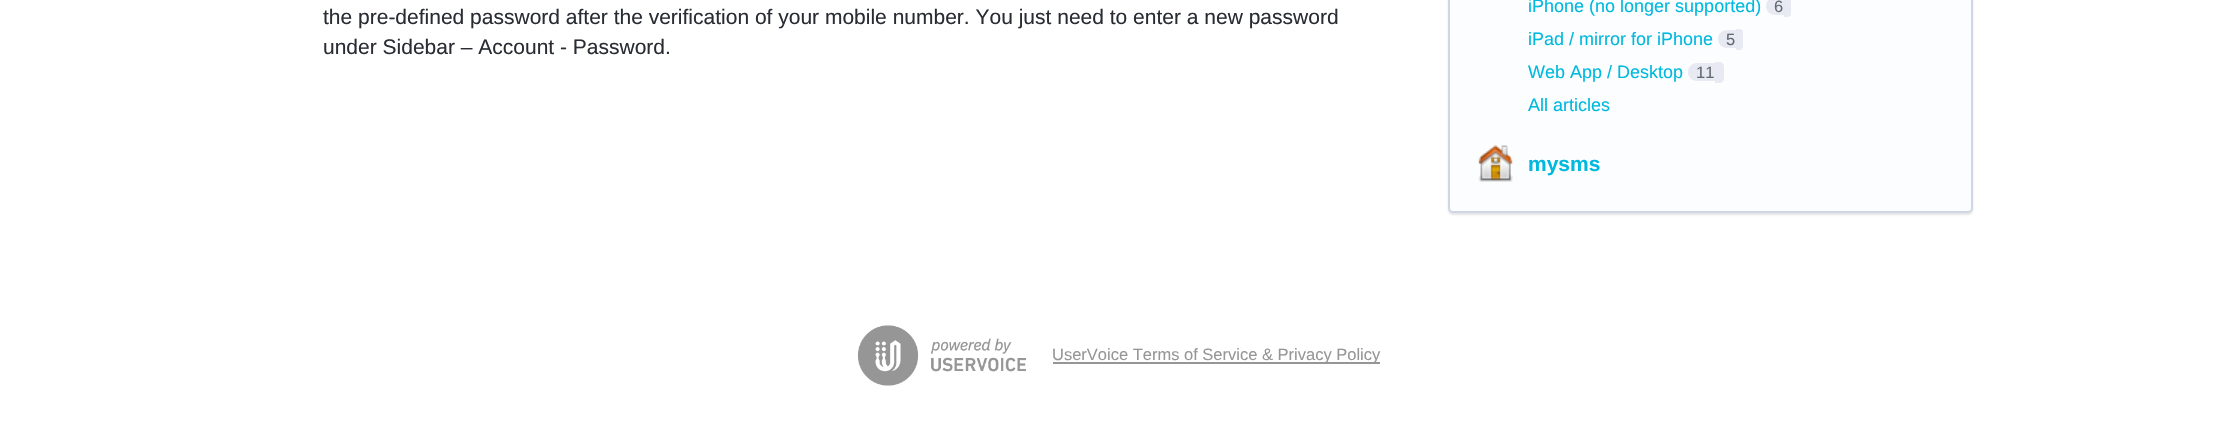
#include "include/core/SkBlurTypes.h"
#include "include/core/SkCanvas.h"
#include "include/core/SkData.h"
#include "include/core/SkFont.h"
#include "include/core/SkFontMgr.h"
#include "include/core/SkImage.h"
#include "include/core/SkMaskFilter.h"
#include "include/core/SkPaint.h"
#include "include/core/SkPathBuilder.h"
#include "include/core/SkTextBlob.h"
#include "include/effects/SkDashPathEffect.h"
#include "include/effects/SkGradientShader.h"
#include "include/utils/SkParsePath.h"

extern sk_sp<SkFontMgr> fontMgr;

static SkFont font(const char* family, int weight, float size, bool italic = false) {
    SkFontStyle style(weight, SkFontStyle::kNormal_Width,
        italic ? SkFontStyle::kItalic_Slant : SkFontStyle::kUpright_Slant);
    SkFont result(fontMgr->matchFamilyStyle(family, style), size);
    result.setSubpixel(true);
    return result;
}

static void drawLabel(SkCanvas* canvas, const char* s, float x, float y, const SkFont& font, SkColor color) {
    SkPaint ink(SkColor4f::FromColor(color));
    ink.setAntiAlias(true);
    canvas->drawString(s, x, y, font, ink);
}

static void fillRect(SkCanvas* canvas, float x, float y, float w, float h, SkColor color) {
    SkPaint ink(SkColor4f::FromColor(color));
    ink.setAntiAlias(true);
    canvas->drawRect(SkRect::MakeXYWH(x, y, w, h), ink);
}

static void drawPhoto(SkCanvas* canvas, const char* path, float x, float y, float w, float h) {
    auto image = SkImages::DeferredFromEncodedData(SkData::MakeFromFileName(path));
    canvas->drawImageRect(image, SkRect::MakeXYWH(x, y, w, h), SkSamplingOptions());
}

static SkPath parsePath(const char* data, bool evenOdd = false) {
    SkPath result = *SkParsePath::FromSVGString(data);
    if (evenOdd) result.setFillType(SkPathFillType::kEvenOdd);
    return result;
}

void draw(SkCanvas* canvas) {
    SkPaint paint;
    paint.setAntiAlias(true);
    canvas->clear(0xFFFFFFFF);
    SkFont font1 = font("Liberation Sans", 400, 21);
    drawLabel(canvas, "the pre-defined password after the verification of your mobile number. You just need to enter a new password", 323, 24, font1, 0xFF292C33);
    drawLabel(canvas, "under Sidebar – Account - Password.", 323, 54, font1, 0xFF292C33);
    paint.setColor(0x1A000000);
    paint.setMaskFilter(SkMaskFilter::MakeBlur(kNormal_SkBlurStyle, 1));
    canvas->drawRoundRect(SkRect::MakeXYWH(1448, -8, 525, 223), 5, 5, paint);
    paint.setMaskFilter(nullptr);
    paint.setColor(0xFFFCFDFF);
    canvas->drawRoundRect(SkRect::MakeXYWH(1449, -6, 523, 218), 4, 4, paint);
    paint.setStroke(true);
    paint.setStrokeWidth(2);
    paint.setColor(0xFFCFD7E6);
    canvas->drawRoundRect(SkRect::MakeXYWH(1449, -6, 523, 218), 4, 4, paint);
    SkFont font2 = font("Liberation Sans", 400, 18);
    drawLabel(canvas, "iPhone (no longer supported)", 1528, 12, font2, 0xFF00B9DE);
    paint.setStroke(false);
    paint.setColor(0xFFE7EAF2);
    canvas->drawPath(parsePath("M1775-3H1784V15H1775C1770 15 1766 11 1766 6C1766 1 1770-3 1775-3Z"), paint);
    SkFont font3 = font("Liberation Sans", 400, 16.5f);
    drawLabel(canvas, "6", 1774, 12, font3, 0xFF616973);
    canvas->drawPath(parsePath("M1784-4H1787.5C1789.5-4 1791-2.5 1791-.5V13.5C1791 15.5 1789.5 17 1787.5 17H1784Z"), paint);
    drawLabel(canvas, "iPad / mirror for iPhone", 1528, 45, font2, 0xFF00B9DE);
    canvas->drawPath(parsePath("M1727 30H1736V48H1727C1722 48 1718 44 1718 39C1718 34 1722 30 1727 30Z"), paint);
    drawLabel(canvas, "5", 1726, 45, font3, 0xFF616973);
    canvas->drawPath(parsePath("M1736 29H1739.5C1741.5 29 1743 30.5 1743 32.5V46.5C1743 48.5 1741.5 50 1739.5 50H1736Z"), paint);
    drawLabel(canvas, "Web App / Desktop", 1528, 78, font2, 0xFF00B9DE);
    canvas->drawPath(parsePath("M1697 63H1715V81H1697C1692 81 1688 77 1688 72C1688 67 1692 63 1697 63Z"), paint);
    drawLabel(canvas, "11", 1696, 78, font3, 0xFF616973);
    canvas->drawPath(parsePath("M1715 62H1719.5C1722 62 1724 64 1724 66.5V78.5C1724 81 1722 83 1719.5 83H1715Z"), paint);
    drawLabel(canvas, "All articles", 1528, 111, font2, 0xFF00B9DE);
    drawPhoto(canvas, "assets/img1.png", 1478, 145, 35, 37);
    SkFont font4 = font("Liberation Sans", 700, 21);
    drawLabel(canvas, "mysms", 1528, 171, font4, 0xFF00B9DE);
    drawPhoto(canvas, "assets/img2.png", 858, 325, 168, 61);
    fillRect(canvas, 1053, 362, 327, 2, 0xFF969696);
    drawLabel(canvas, "UserVoice Terms of Service & Privacy Policy", 1052, 360, font3, 0xFF969696);
}
